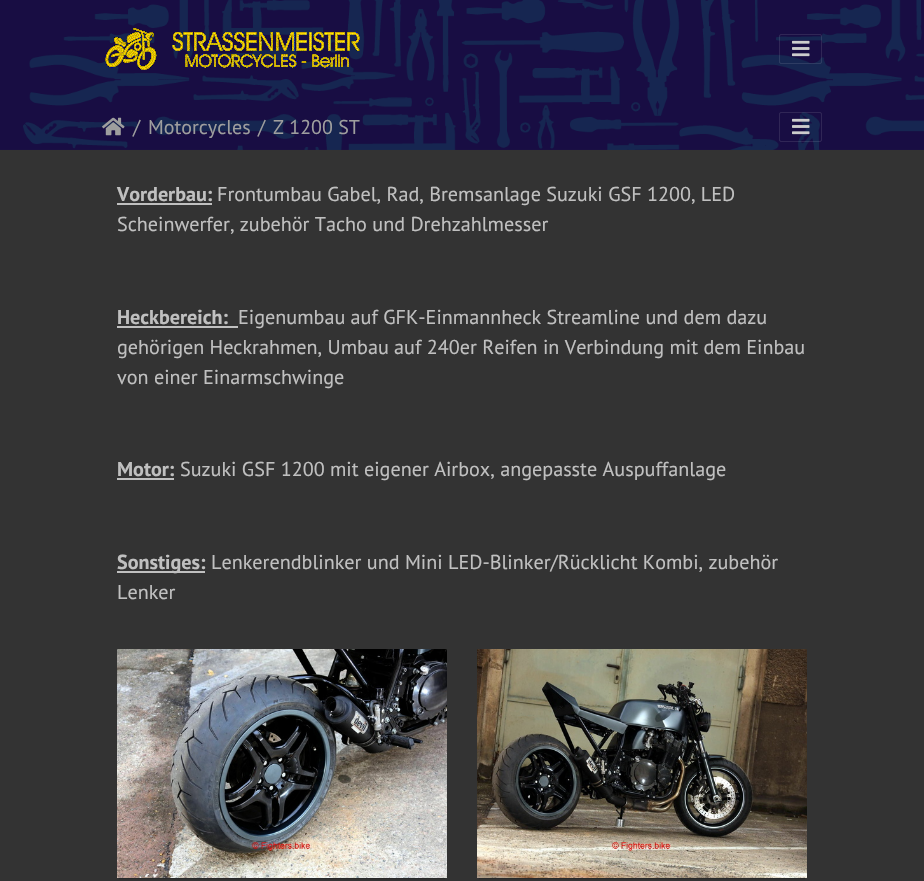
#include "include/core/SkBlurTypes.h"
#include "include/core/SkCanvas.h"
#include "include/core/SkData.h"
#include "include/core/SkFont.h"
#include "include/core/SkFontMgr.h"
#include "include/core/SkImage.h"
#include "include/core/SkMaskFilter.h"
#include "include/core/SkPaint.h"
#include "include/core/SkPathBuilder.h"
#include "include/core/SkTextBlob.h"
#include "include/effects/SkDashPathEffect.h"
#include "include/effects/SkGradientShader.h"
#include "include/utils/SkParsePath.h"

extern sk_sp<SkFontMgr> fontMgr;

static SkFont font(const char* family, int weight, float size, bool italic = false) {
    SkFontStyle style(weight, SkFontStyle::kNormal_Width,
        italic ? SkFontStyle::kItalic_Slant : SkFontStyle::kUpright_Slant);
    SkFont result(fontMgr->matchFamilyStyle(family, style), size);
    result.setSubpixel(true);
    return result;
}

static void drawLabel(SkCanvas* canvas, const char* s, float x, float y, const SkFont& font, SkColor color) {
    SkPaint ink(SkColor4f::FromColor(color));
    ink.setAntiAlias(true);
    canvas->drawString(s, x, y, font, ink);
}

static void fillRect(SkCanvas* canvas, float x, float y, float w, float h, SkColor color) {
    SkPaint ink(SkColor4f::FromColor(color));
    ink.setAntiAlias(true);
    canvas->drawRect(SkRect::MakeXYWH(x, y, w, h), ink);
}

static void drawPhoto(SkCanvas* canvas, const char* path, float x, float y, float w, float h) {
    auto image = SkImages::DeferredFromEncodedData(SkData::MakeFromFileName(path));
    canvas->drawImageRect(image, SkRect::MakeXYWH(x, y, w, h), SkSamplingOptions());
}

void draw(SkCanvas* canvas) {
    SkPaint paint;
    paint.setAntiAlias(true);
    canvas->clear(0xFF333333);
    drawPhoto(canvas, "assets/img1.png", 0, 0, 924, 150);
    drawPhoto(canvas, "assets/img2.png", 105, 28, 255, 42);
    paint.setStroke(true);
    paint.setStrokeWidth(1);
    paint.setColor(0x1AFFFFFF);
    canvas->drawRoundRect(SkRect::MakeXYWH(779.5f, 34.5f, 42, 29), 1.5f, 1.5f, paint);
    drawPhoto(canvas, "assets/img3.png", 792, 40, 18, 17);
    drawPhoto(canvas, "assets/img4.png", 102, 117, 23, 19);
    SkFont font1 = font("PT Sans", 400, 20);
    drawLabel(canvas, "/", 133, 134, font1, 0xFF9E9E9E);
    drawLabel(canvas, "Motorcycles", 148, 134, font1, 0xFF9E9E9E);
    drawLabel(canvas, "/", 258, 134, font1, 0xFF9E9E9E);
    drawLabel(canvas, "Z 1200 ST", 273, 134, font1, 0xFF9E9E9E);
    canvas->drawRoundRect(SkRect::MakeXYWH(779.5f, 112.5f, 42, 29), 1.5f, 1.5f, paint);
    drawPhoto(canvas, "assets/img5.png", 792, 118, 18, 17);
    SkFont font2 = font("PT Sans", 700, 20.15f);
    drawLabel(canvas, "Vorderbau:", 117, 201, font2, 0xFFC0C0C0);
    fillRect(canvas, 117, 203, 95, 2, 0xFFC0C0C0);
    SkFont font3 = font("PT Sans", 400, 20.15f);
    drawLabel(canvas, "Frontumbau Gabel, Rad, Bremsanlage Suzuki GSF 1200, LED", 217, 201, font3, 0xFFC0C0C0);
    drawLabel(canvas, "Scheinwerfer, zubehör Tacho und Drehzahlmesser", 117, 231, font3, 0xFFC0C0C0);
    drawLabel(canvas, "Heckbereich:", 117, 324, font2, 0xFFC0C0C0);
    fillRect(canvas, 117, 326, 121, 2, 0xFFC0C0C0);
    drawLabel(canvas, "Eigenumbau auf GFK-Einmannheck Streamline und dem dazu", 238, 324, font3, 0xFFC0C0C0);
    drawLabel(canvas, "gehörigen Heckrahmen, Umbau auf 240er Reifen in Verbindung mit dem Einbau", 117, 354, font3, 0xFFC0C0C0);
    drawLabel(canvas, "von einer Einarmschwinge", 117, 384, font3, 0xFFC0C0C0);
    drawLabel(canvas, "Motor:", 117, 476, font2, 0xFFC0C0C0);
    fillRect(canvas, 117, 478, 57, 2, 0xFFC0C0C0);
    drawLabel(canvas, "Suzuki GSF 1200 mit eigener Airbox, angepasste Auspuffanlage", 180, 476, font3, 0xFFC0C0C0);
    fillRect(canvas, 117, 571, 88, 2, 0xFFC0C0C0);
    drawLabel(canvas, "Sonstiges:", 117, 569, font2, 0xFFC0C0C0);
    drawLabel(canvas, "Lenkerendblinker und Mini LED-Blinker/Rücklicht Kombi, zubehör", 211, 569, font3, 0xFFC0C0C0);
    drawLabel(canvas, "Lenker", 117, 599, font3, 0xFFC0C0C0);
    paint.setStroke(false);
    paint.setColor(0x33000000);
    paint.setMaskFilter(SkMaskFilter::MakeBlur(kNormal_SkBlurStyle, 0.5f));
    canvas->drawRect(SkRect::MakeXYWH(119, 654, 326, 225), paint);
    paint.setMaskFilter(nullptr);
    drawPhoto(canvas, "assets/img6.png", 117, 649, 330, 229);
    paint.setMaskFilter(SkMaskFilter::MakeBlur(kNormal_SkBlurStyle, 0.5f));
    canvas->drawRect(SkRect::MakeXYWH(479, 654, 326, 225), paint);
    paint.setMaskFilter(nullptr);
    drawPhoto(canvas, "assets/img7.png", 477, 649, 330, 229);
}
